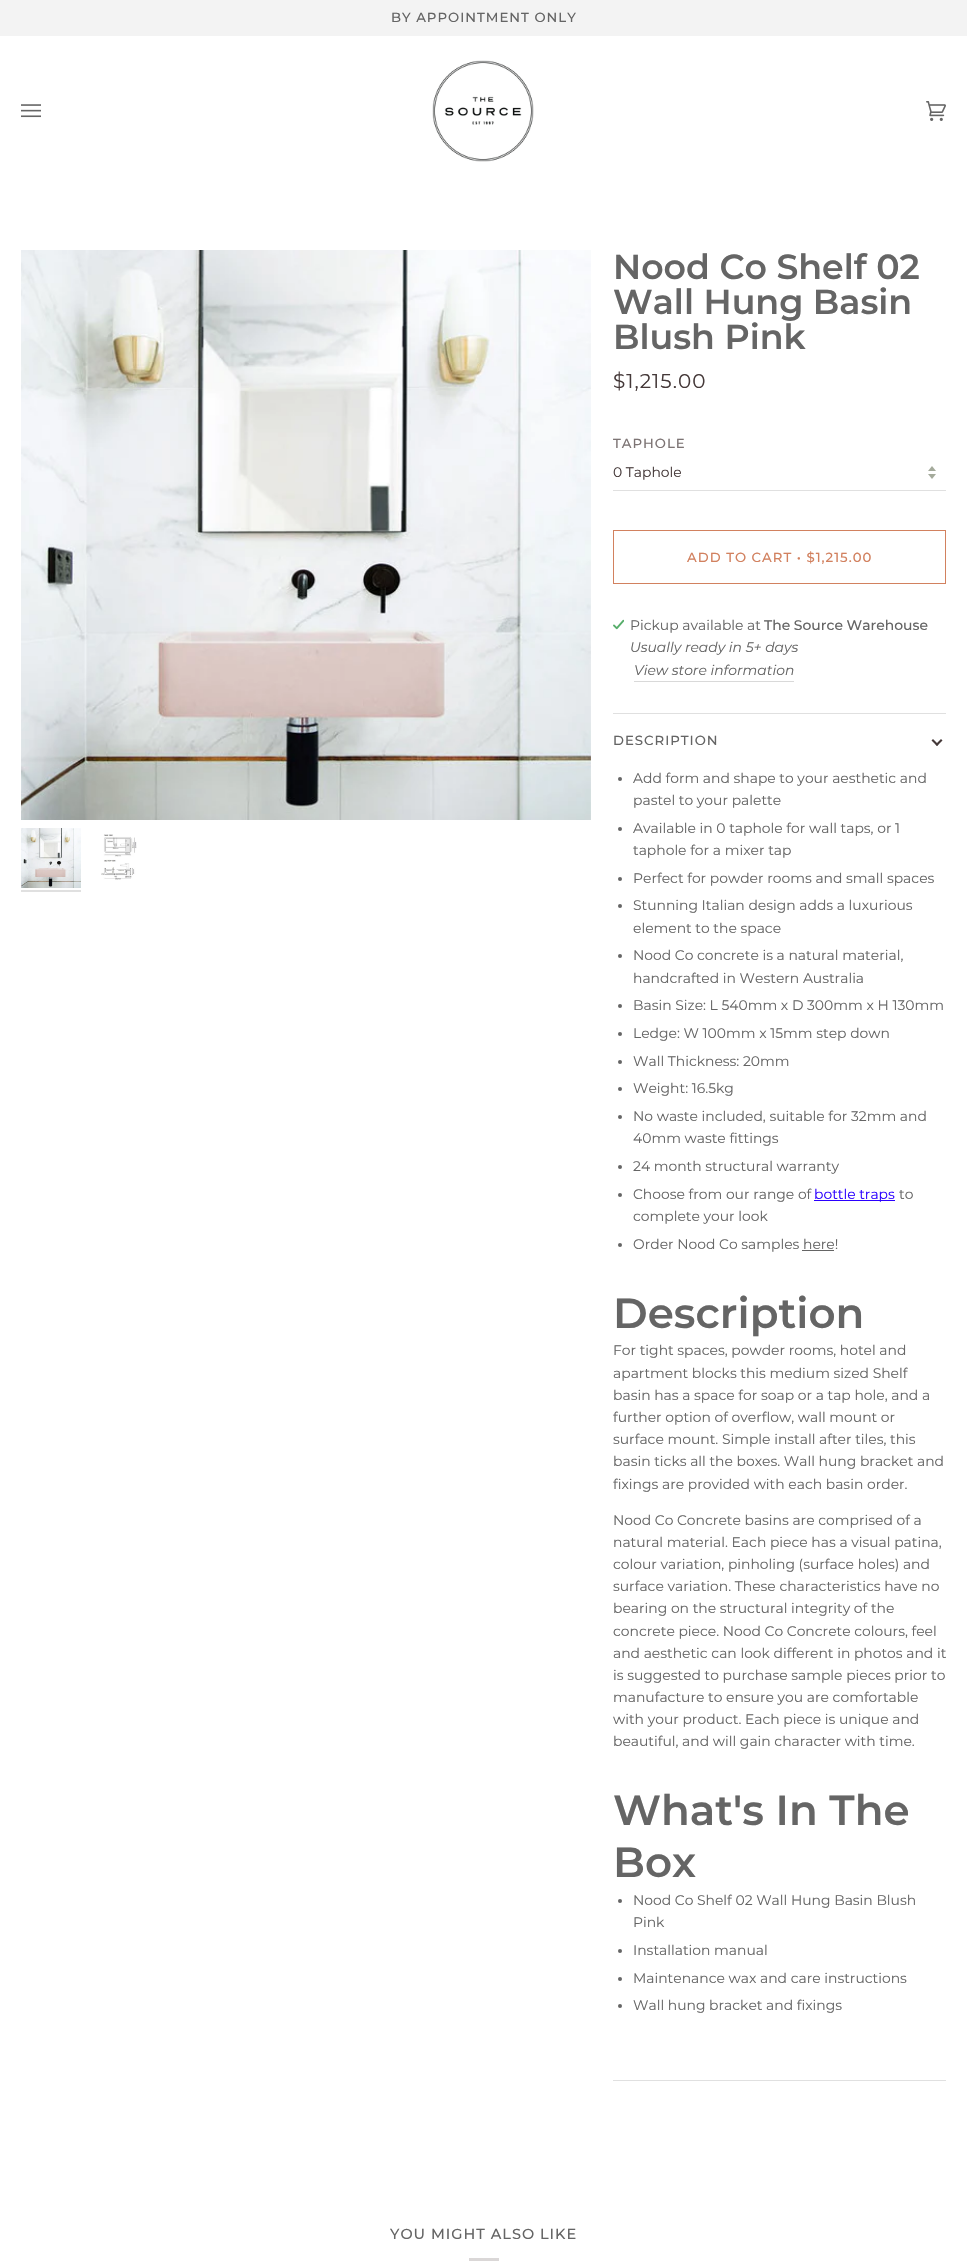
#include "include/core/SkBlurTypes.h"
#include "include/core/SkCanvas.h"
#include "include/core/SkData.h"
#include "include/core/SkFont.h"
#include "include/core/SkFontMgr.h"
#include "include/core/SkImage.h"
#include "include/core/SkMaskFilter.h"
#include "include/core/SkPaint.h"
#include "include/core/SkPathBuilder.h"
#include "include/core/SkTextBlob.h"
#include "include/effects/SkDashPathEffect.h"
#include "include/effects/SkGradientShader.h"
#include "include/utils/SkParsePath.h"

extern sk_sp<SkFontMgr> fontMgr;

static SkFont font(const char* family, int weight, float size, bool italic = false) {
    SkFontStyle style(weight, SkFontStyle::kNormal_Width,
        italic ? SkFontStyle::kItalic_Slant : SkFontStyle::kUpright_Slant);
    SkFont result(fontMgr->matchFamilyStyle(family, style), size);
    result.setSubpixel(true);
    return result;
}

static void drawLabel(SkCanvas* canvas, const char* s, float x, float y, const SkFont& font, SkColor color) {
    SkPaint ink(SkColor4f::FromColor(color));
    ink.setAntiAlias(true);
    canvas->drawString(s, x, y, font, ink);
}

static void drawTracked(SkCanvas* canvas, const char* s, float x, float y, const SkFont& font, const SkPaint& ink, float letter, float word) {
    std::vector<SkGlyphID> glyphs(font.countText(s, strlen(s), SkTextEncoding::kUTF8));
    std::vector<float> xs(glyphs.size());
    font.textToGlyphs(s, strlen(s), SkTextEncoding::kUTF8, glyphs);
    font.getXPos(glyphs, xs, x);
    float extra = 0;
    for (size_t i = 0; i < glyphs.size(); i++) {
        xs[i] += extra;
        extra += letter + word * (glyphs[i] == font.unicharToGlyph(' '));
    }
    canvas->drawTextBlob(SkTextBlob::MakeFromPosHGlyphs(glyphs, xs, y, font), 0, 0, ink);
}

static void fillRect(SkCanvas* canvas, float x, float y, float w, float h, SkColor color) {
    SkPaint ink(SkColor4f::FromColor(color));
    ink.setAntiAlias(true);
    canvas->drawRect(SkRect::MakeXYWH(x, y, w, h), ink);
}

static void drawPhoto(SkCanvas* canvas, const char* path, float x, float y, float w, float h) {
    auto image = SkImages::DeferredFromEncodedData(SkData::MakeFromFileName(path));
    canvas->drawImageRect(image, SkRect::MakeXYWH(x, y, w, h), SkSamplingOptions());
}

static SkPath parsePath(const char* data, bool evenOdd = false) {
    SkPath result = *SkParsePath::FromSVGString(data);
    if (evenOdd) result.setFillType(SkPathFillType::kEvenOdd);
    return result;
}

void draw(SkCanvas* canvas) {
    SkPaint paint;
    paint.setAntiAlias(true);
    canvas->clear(0xFFFFFFFF);
    fillRect(canvas, 0, 0, 967, 36, 0xFFF3F3F3);
    SkFont font1 = font("Montserrat", 500, 13.25f);
    paint.setColor(0xFF656565);
    drawTracked(canvas, "BY APPOINTMENT ONLY", 391, 22, font1, paint, 1, 0);
    drawPhoto(canvas, "assets/img1.png", 21, 104, 20, 14);
    drawPhoto(canvas, "assets/img2.png", 432, 60, 102, 102);
    drawPhoto(canvas, "assets/img3.png", 926, 101, 20, 20);
    drawPhoto(canvas, "assets/img4.png", 21, 250, 570, 570);
    drawPhoto(canvas, "assets/img5.png", 21, 828, 60, 60);
    fillRect(canvas, 21, 890, 60, 2, 0xFFE0E0E0);
    drawPhoto(canvas, "assets/img6.png", 101, 834, 36, 46);
    SkFont font2 = font("Montserrat", 600, 34.75f);
    drawLabel(canvas, "Nood Co Shelf 02", 613, 279, font2, 0xFF656565);
    drawLabel(canvas, "Wall Hung Basin", 613, 314, font2, 0xFF656565);
    drawLabel(canvas, "Blush Pink", 613, 349, font2, 0xFF656565);
    SkFont font3 = font("Montserrat", 400, 20);
    paint.setColor(0xFF453939);
    drawTracked(canvas, "$1,215.00", 613, 388, font3, paint, 1, 0);
    paint.setColor(0xFF7D7474);
    drawTracked(canvas, "TAPHOLE", 613, 448, font1, paint, 1, 0);
    drawPhoto(canvas, "assets/img7.png", 928, 466, 8, 13);
    fillRect(canvas, 613, 490, 333, 1, 0xFFE0E0E0);
    SkFont font4 = font("Montserrat", 400, 13.9f);
    drawLabel(canvas, "0 Taphole", 613, 477, font4, 0xFF453939);
    paint.setStroke(true);
    paint.setStrokeWidth(1);
    paint.setColor(0xFFD2815F);
    canvas->drawRect(SkRect::MakeXYWH(613.5f, 530.5f, 332, 53), paint);
    paint.setStroke(false);
    drawTracked(canvas, "ADD TO CART • $1,215.00", 687, 562, font1, paint, 1, 0);
    drawPhoto(canvas, "assets/img8.png", 613, 619, 11, 11);
    drawLabel(canvas, "Pickup available at", 630, 630, font4, 0xFF656565);
    SkFont font5 = font("Montserrat", 500, 13.9f);
    drawLabel(canvas, "The Source Warehouse", 764, 630, font5, 0xFF656565);
    SkFont font6 = font("Montserrat", 400, 13.9f, true);
    drawLabel(canvas, "Usually ready in 5+ days", 630, 652, font6, 0xFF656565);
    drawLabel(canvas, "View store information", 634, 675, font6, 0xFF656565);
    fillRect(canvas, 634, 681, 160, 1, 0xFFD9D9D9);
    fillRect(canvas, 613, 713, 333, 1, 0xFFE0E0E0);
    fillRect(canvas, 613, 2080, 333, 1, 0xFFE0E0E0);
    paint.setColor(0xFF656565);
    drawTracked(canvas, "DESCRIPTION", 613, 745, font1, paint, 1, 0);
    paint.setColor(0xFF453939);
    canvas->drawPath(parsePath("M935.5 744.5L941 739L942.5 740.5L937 746Z"), paint);
    canvas->drawPath(parsePath("M931.5 740.5L933 739L938.5 744.5L937 746Z"), paint);
    paint.setColor(0xFF656565);
    canvas->drawCircle(620, 779, 2, paint);
    drawLabel(canvas, "Add form and shape to your aesthetic and", 633, 783, font4, 0xFF656565);
    drawLabel(canvas, "pastel to your palette", 633, 805, font4, 0xFF656565);
    canvas->drawCircle(620, 829, 2, paint);
    drawLabel(canvas, "Available in 0 taphole for wall taps, or 1", 633, 833, font4, 0xFF656565);
    drawLabel(canvas, "taphole for a mixer tap", 633, 855, font4, 0xFF656565);
    canvas->drawCircle(620, 879, 2, paint);
    drawLabel(canvas, "Perfect for powder rooms and small spaces", 633, 883, font4, 0xFF656565);
    canvas->drawCircle(620, 906, 2, paint);
    drawLabel(canvas, "Stunning Italian design adds a luxurious", 633, 910, font4, 0xFF656565);
    drawLabel(canvas, "element to the space", 633, 933, font4, 0xFF656565);
    canvas->drawCircle(620, 956, 2, paint);
    drawLabel(canvas, "Nood Co concrete is a natural material,", 633, 960, font4, 0xFF656565);
    drawLabel(canvas, "handcrafted in Western Australia", 633, 983, font4, 0xFF656565);
    canvas->drawCircle(620, 1006, 2, paint);
    drawLabel(canvas, "Basin Size: L 540mm x D 300mm x H 130mm", 633, 1010, font4, 0xFF656565);
    canvas->drawCircle(620, 1034, 2, paint);
    drawLabel(canvas, "Ledge: W 100mm x 15mm step down", 633, 1038, font4, 0xFF656565);
    canvas->drawCircle(620, 1062, 2, paint);
    drawLabel(canvas, "Wall Thickness: 20mm", 633, 1066, font4, 0xFF656565);
    canvas->drawCircle(620, 1089, 2, paint);
    drawLabel(canvas, "Weight: 16.5kg", 633, 1093, font4, 0xFF656565);
    canvas->drawCircle(620, 1117, 2, paint);
    drawLabel(canvas, "No waste included, suitable for 32mm and", 633, 1121, font4, 0xFF656565);
    drawLabel(canvas, "40mm waste fittings", 633, 1143, font4, 0xFF656565);
    canvas->drawCircle(620, 1167, 2, paint);
    drawLabel(canvas, "24 month structural warranty", 633, 1171, font4, 0xFF656565);
    canvas->drawCircle(620, 1195, 2, paint);
    drawLabel(canvas, "Choose from our range of", 633, 1199, font4, 0xFF656565);
    fillRect(canvas, 814, 1200, 81, 1, 0xFF2B00FF);
    drawLabel(canvas, "bottle traps", 814, 1199, font4, 0xFF2B00FF);
    drawLabel(canvas, "to", 899, 1199, font4, 0xFF656565);
    drawLabel(canvas, "complete your look", 633, 1221, font4, 0xFF656565);
    canvas->drawCircle(620, 1245, 2, paint);
    drawLabel(canvas, "Order Nood Co samples here!", 633, 1249, font4, 0xFF656565);
    fillRect(canvas, 802, 1250, 32, 1, 0xFF656565);
    SkFont font7 = font("Montserrat", 600, 42);
    drawLabel(canvas, "Description", 613, 1328, font7, 0xFF656565);
    drawLabel(canvas, "For tight spaces, powder rooms, hotel and", 613, 1355, font4, 0xFF656565);
    drawLabel(canvas, "apartment blocks this medium sized Shelf", 613, 1378, font4, 0xFF656565);
    drawLabel(canvas, "basin has a space for soap or a tap hole, and a", 613, 1400, font4, 0xFF656565);
    drawLabel(canvas, "further option of overflow, wall mount or", 613, 1422, font4, 0xFF656565);
    drawLabel(canvas, "surface mount. Simple install after tiles, this", 613, 1444, font4, 0xFF656565);
    drawLabel(canvas, "basin ticks all the boxes. Wall hung bracket and", 613, 1466, font4, 0xFF656565);
    drawLabel(canvas, "fixings are provided with each basin order.", 613, 1489, font4, 0xFF656565);
    drawLabel(canvas, "Nood Co Concrete basins are comprised of a", 613, 1525, font4, 0xFF656565);
    drawLabel(canvas, "natural material. Each piece has a visual patina,", 613, 1547, font4, 0xFF656565);
    drawLabel(canvas, "colour variation, pinholing (surface holes) and", 613, 1569, font4, 0xFF656565);
    drawLabel(canvas, "surface variation. These characteristics have no", 613, 1591, font4, 0xFF656565);
    drawLabel(canvas, "bearing on the structural integrity of the", 613, 1613, font4, 0xFF656565);
    drawLabel(canvas, "concrete piece. Nood Co Concrete colours, feel", 613, 1636, font4, 0xFF656565);
    drawLabel(canvas, "and aesthetic can look different in photos and it", 613, 1658, font4, 0xFF656565);
    drawLabel(canvas, "is suggested to purchase sample pieces prior to", 613, 1680, font4, 0xFF656565);
    drawLabel(canvas, "manufacture to ensure you are comfortable", 613, 1702, font4, 0xFF656565);
    drawLabel(canvas, "with your product. Each piece is unique and", 613, 1724, font4, 0xFF656565);
    drawLabel(canvas, "beautiful, and will gain character with time.", 613, 1746, font4, 0xFF656565);
    drawLabel(canvas, "What's In The", 613, 1825, font7, 0xFF656565);
    drawLabel(canvas, "Box", 613, 1877, font7, 0xFF656565);
    canvas->drawCircle(620, 1901, 2, paint);
    drawLabel(canvas, "Nood Co Shelf 02 Wall Hung Basin Blush", 633, 1905, font4, 0xFF656565);
    drawLabel(canvas, "Pink", 633, 1927, font4, 0xFF656565);
    canvas->drawCircle(620, 1951, 2, paint);
    drawLabel(canvas, "Installation manual", 633, 1955, font4, 0xFF656565);
    canvas->drawCircle(620, 1979, 2, paint);
    drawLabel(canvas, "Maintenance wax and care instructions", 633, 1983, font4, 0xFF656565);
    canvas->drawCircle(620, 2006, 2, paint);
    drawLabel(canvas, "Wall hung bracket and fixings", 633, 2010, font4, 0xFF656565);
    SkFont font8 = font("Montserrat", 500, 14.5f);
    drawTracked(canvas, "YOU MIGHT ALSO LIKE", 390, 2239, font8, paint, 1, 0);
    fillRect(canvas, 469, 2258, 30, 3, 0xFFDAD7D7);
}
